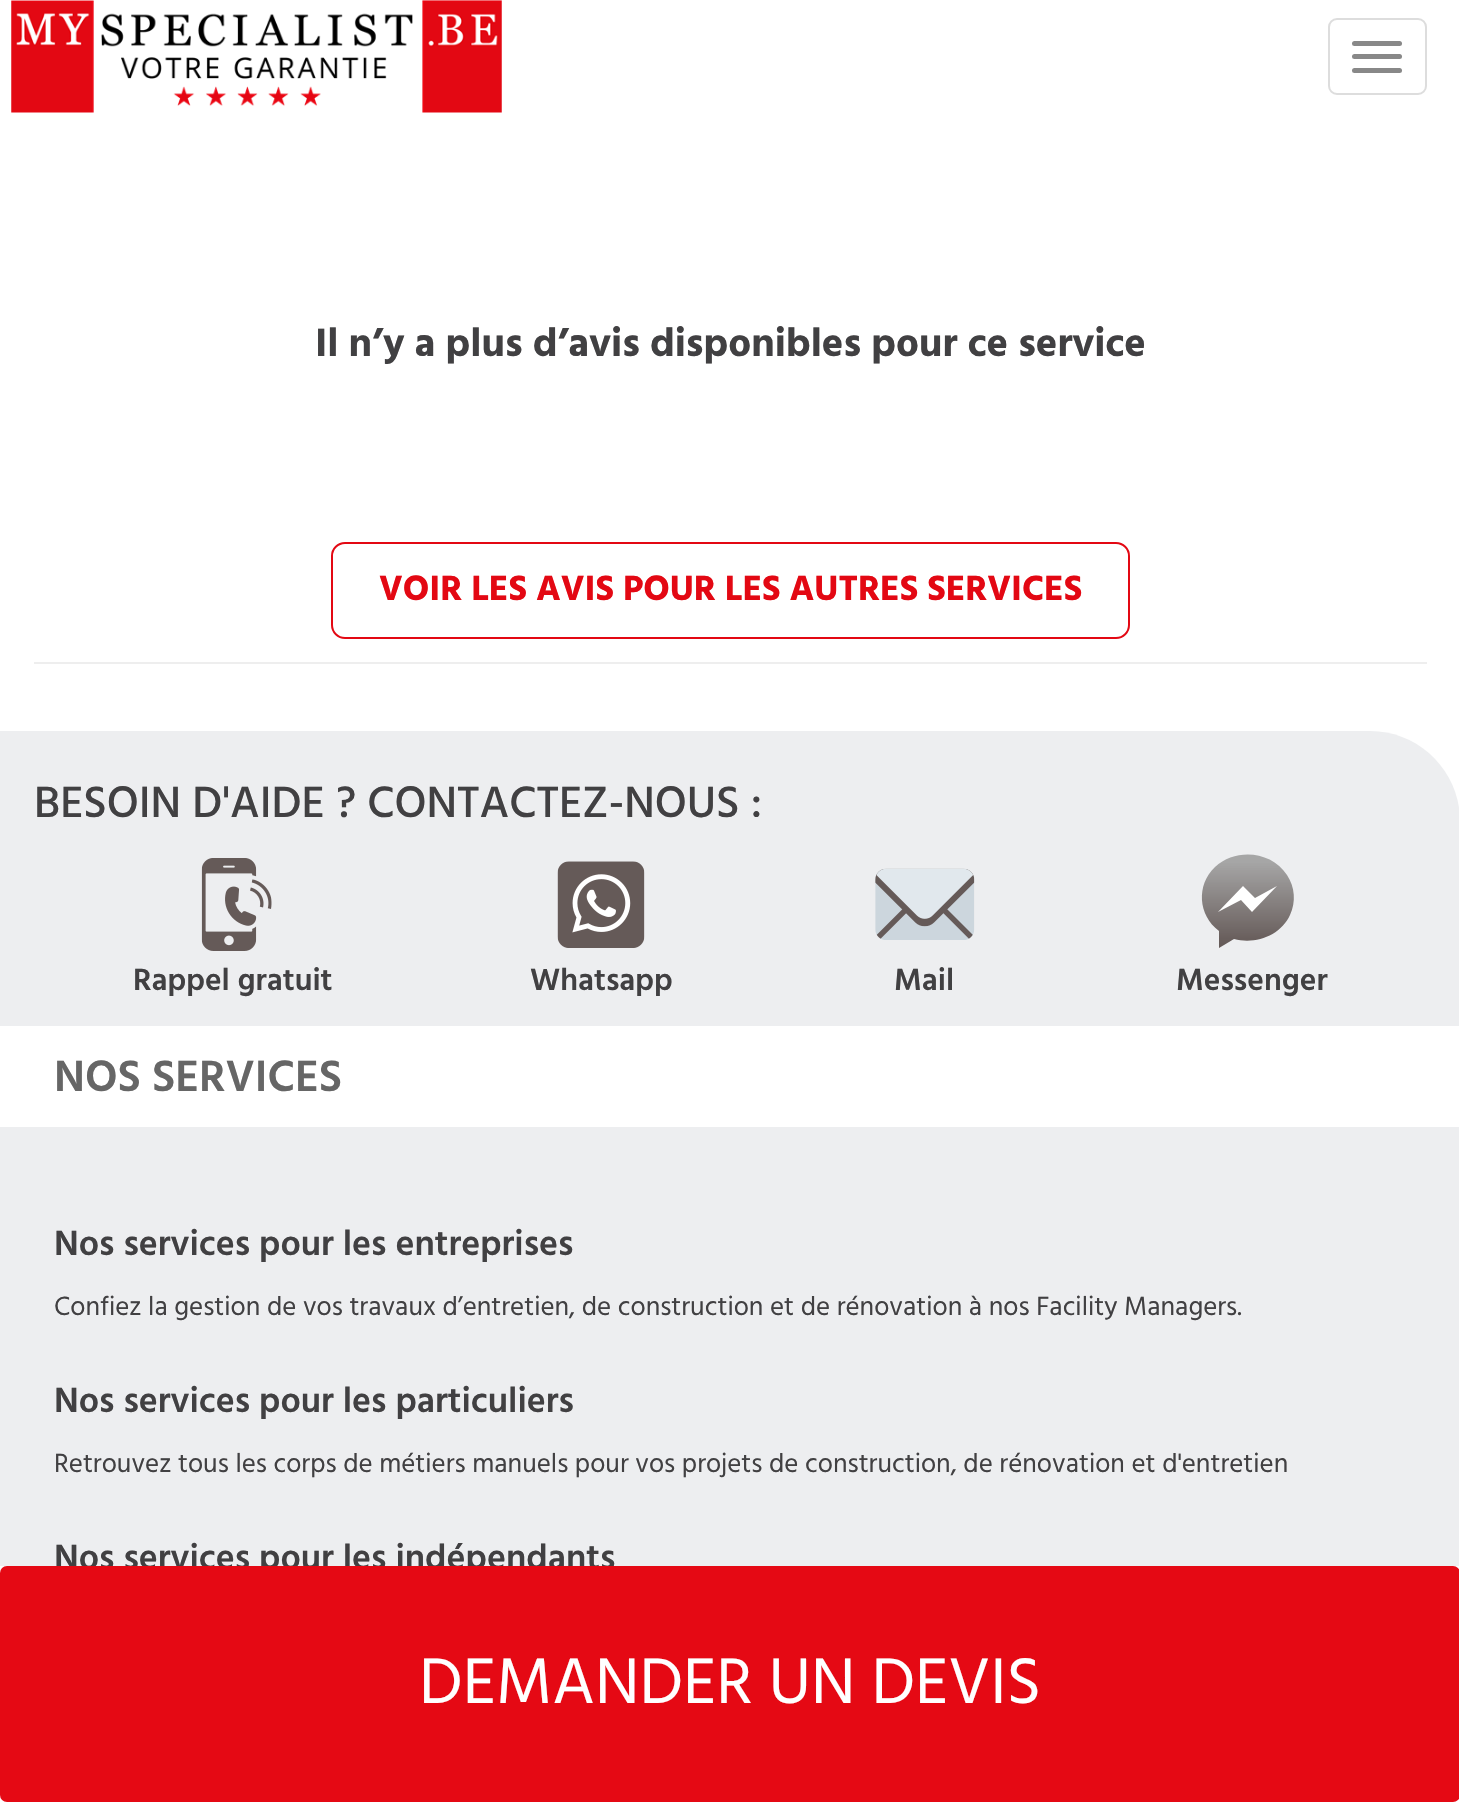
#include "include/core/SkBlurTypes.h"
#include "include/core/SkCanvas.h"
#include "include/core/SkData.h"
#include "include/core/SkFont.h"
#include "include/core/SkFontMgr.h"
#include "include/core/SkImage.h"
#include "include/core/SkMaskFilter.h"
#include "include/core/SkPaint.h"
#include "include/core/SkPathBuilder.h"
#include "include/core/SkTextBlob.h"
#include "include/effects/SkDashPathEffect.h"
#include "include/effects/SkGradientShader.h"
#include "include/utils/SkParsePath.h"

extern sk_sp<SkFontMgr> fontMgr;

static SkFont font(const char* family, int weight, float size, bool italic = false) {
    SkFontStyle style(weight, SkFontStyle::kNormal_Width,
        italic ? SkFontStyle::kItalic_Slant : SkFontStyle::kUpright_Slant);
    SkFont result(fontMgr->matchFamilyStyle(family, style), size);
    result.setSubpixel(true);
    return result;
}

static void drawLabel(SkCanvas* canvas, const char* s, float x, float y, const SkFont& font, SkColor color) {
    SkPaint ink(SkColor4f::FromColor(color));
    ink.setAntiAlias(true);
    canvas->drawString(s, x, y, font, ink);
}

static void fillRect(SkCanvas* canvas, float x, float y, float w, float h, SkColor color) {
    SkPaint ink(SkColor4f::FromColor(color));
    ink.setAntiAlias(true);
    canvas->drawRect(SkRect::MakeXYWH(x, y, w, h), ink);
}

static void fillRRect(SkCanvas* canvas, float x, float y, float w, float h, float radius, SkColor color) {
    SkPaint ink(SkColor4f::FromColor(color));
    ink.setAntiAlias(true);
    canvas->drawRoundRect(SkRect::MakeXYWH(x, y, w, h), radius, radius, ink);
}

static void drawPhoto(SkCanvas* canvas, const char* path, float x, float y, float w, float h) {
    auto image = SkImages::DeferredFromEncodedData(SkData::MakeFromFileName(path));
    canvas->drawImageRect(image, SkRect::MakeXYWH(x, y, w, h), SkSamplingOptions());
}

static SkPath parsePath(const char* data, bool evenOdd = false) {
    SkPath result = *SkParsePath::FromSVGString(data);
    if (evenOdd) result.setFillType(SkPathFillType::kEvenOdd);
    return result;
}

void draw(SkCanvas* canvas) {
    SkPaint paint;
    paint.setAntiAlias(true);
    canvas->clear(0xFFFFFFFF);
    drawPhoto(canvas, "assets/img1.png", 11, 0, 491, 113);
    paint.setStroke(true);
    paint.setStrokeWidth(2);
    paint.setColor(0xFFDDDDDD);
    canvas->drawRoundRect(SkRect::MakeXYWH(1329, 19, 97, 75), 8, 8, paint);
    fillRRect(canvas, 1352, 41, 50, 5, 2.5f, 0xFF888888);
    fillRRect(canvas, 1352, 54, 50, 5, 2.5f, 0xFF888888);
    fillRRect(canvas, 1352, 68, 50, 5, 2.5f, 0xFF888888);
    SkFont font1 = font("Hind Madurai", 700, 40.5f);
    drawLabel(canvas, "Il n’y a plus d’avis disponibles pour ce service", 315, 356, font1, 0xFF414042);
    paint.setColor(0xFFE30813);
    canvas->drawRoundRect(SkRect::MakeXYWH(332, 543, 797, 95), 13, 13, paint);
    SkFont font2 = font("Hind Madurai", 700, 36);
    drawLabel(canvas, "VOIR LES AVIS POUR LES AUTRES SERVICES", 379, 600, font2, 0xFFE30813);
    fillRect(canvas, 34, 662, 1393, 2, 0xFFEEEEEE);
    paint.setStroke(false);
    paint.setColor(0xFFEDEEF0);
    canvas->drawPath(parsePath("M0 731H1370C1419.5 731 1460 771.5 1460 821V1026H0Z"), paint);
    SkFont font3 = font("Hind Madurai", 500, 45);
    drawLabel(canvas, "BESOIN D'AIDE ? CONTACTEZ-NOUS :", 34, 817, font3, 0xFF414042);
    drawPhoto(canvas, "assets/img2.png", 201, 858, 71, 93);
    SkFont font4 = font("Hind Madurai", 600, 31.5f);
    drawLabel(canvas, "Rappel gratuit", 133, 990, font4, 0xFF414042);
    drawPhoto(canvas, "assets/img3.png", 557, 861, 88, 87);
    drawLabel(canvas, "Whatsapp", 530, 990, font4, 0xFF414042);
    drawPhoto(canvas, "assets/img4.png", 875, 868, 100, 72);
    drawLabel(canvas, "Mail", 894, 990, font4, 0xFF414042);
    {
        const SkColor colors[] = {0xFFA6A6A6, 0xFFA6A6A6, 0xFFA5A5A5, 0xFFA4A4A4, 0xFFA4A3A3, 0xFFA3A3A3, 0xFFA3A2A2, 0xFFA2A1A1, 0xFFA2A1A1, 0xFFA1A0A0, 0xFFA09F9F, 0xFFA09F9F, 0xFF9F9E9E, 0xFF9F9D9D, 0xFF9E9D9C, 0xFF9E9C9C, 0xFF9D9B9B, 0xFF9C9B9A, 0xFF9C9A9A, 0xFF9B9999, 0xFF9B9998, 0xFF9A9898, 0xFF9A9797, 0xFF999796, 0xFF989696, 0xFF989595, 0xFF979594, 0xFF979494, 0xFF969393, 0xFF959392, 0xFF959292, 0xFF949191, 0xFF949190, 0xFF93908F, 0xFF938F8F, 0xFF928F8E, 0xFF918E8D, 0xFF918D8D, 0xFF908D8C, 0xFF908C8B, 0xFF8F8B8B, 0xFF8F8B8A, 0xFF8E8A89, 0xFF8D8989, 0xFF8D8988, 0xFF8C8887, 0xFF8C8787, 0xFF8B8786, 0xFF8B8685, 0xFF8A8584, 0xFF898584, 0xFF898483, 0xFF888382, 0xFF888382, 0xFF878281, 0xFF878180, 0xFF868180, 0xFF85807F, 0xFF857F7E, 0xFF847F7E, 0xFF847E7D, 0xFF837D7C, 0xFF837D7C, 0xFF827C7B, 0xFF817B7A, 0xFF817B7A, 0xFF807A79, 0xFF807978, 0xFF7F7977, 0xFF7F7877, 0xFF7E7776, 0xFF7D7775, 0xFF7D7675, 0xFF7C7574, 0xFF7C7573, 0xFF7B7473, 0xFF7B7372, 0xFF7A7371, 0xFF797271, 0xFF797170, 0xFF78716F, 0xFF78706F, 0xFF776F6E, 0xFF776F6D, 0xFF766E6C, 0xFF756D6C, 0xFF756D6B, 0xFF746C6A, 0xFF746B6A, 0xFF736B69, 0xFF736A68, 0xFF726968, 0xFF716967, 0xFF716866, 0xFF706766, 0xFF706765, 0xFF6F6664, 0xFF6F6564, 0xFF6E6563, 0xFF6D6462, 0xFF6D6361, 0xFF6C6361, 0xFF6C6260, 0xFF6B615F, 0xFF6B615F, 0xFF6A605E, 0xFF695F5D, 0xFF695F5D, 0xFF685E5C, 0xFF685D5B, 0xFF675D5B, 0xFF675C5A, 0xFF665B59, 0xFF655B59, 0xFF655A58, 0xFF655A58};
        const float stops[] = {0, 0.08f, 0.09f, 0.09f, 0.1f, 0.11f, 0.12f, 0.12f, 0.13f, 0.14f, 0.15f, 0.16f, 0.16f, 0.17f, 0.18f, 0.19f, 0.2f, 0.2f, 0.21f, 0.22f, 0.23f, 0.23f, 0.24f, 0.25f, 0.26f, 0.27f, 0.27f, 0.28f, 0.29f, 0.3f, 0.3f, 0.31f, 0.32f, 0.33f, 0.34f, 0.34f, 0.35f, 0.36f, 0.37f, 0.38f, 0.38f, 0.39f, 0.4f, 0.41f, 0.41f, 0.42f, 0.43f, 0.44f, 0.45f, 0.45f, 0.46f, 0.47f, 0.48f, 0.48f, 0.49f, 0.5f, 0.51f, 0.52f, 0.52f, 0.53f, 0.54f, 0.55f, 0.55f, 0.56f, 0.57f, 0.58f, 0.59f, 0.59f, 0.6f, 0.61f, 0.62f, 0.62f, 0.63f, 0.64f, 0.65f, 0.66f, 0.66f, 0.67f, 0.68f, 0.69f, 0.7f, 0.7f, 0.71f, 0.72f, 0.73f, 0.73f, 0.74f, 0.75f, 0.76f, 0.77f, 0.77f, 0.78f, 0.79f, 0.8f, 0.8f, 0.81f, 0.82f, 0.83f, 0.84f, 0.84f, 0.85f, 0.86f, 0.87f, 0.88f, 0.88f, 0.89f, 0.9f, 0.91f, 0.91f, 0.92f, 0.93f, 0.94f, 0.95f, 0.95f, 0.97f, 1};
        const SkPoint ends[] = {{1248, 855}, {1248, 948}};
        paint.setShader(SkGradientShader::MakeLinear(ends, colors, stops, 116, SkTileMode::kClamp));
        paint.setAlpha(255);
    }
    canvas->drawPath(parsePath("M1219 931C1198 915 1196 885 1215 867C1236 848 1271 851 1287 875C1295 887 1296 902 1290 915C1281 935 1256 945 1234 939L1219 948Z"), paint);
    paint.setShader(nullptr);
    paint.setColor(0xFFFFFFFF);
    canvas->drawPath(parsePath("M1243 886L1218 912L1241 900L1252 912L1277 886L1255 898Z"), paint);
    drawLabel(canvas, "Messenger", 1176, 990, font4, 0xFF414042);
    fillRect(canvas, 0, 1127, 1459, 446, 0xFFEDEEF0);
    SkFont font5 = font("Hind Madurai", 600, 45);
    drawLabel(canvas, "NOS SERVICES", 54, 1091, font5, 0xFF666666);
    SkFont font6 = font("Hind Madurai", 600, 36);
    drawLabel(canvas, "Nos services pour les entreprises", 54, 1255, font6, 0xFF414042);
    SkFont font7 = font("Hind Madurai", 400, 27);
    drawLabel(canvas, "Confiez la gestion de vos travaux d’entretien, de construction et de rénovation à nos Facility Managers.", 54, 1315, font7, 0xFF414042);
    drawLabel(canvas, "Nos services pour les particuliers", 54, 1412, font6, 0xFF414042);
    drawLabel(canvas, "Retrouvez tous les corps de métiers manuels pour vos projets de construction, de rénovation et d'entretien", 54, 1472, font7, 0xFF414042);
    drawLabel(canvas, "Nos services pour les indépendants", 54, 1569, font6, 0xFF414042);
    fillRect(canvas, 0, 1566, 1459, 10, 0xD9FFFFFF);
    paint.setColor(0xFFE50914);
    canvas->drawRoundRect(SkRect::MakeXYWH(1, 1567, 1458, 234), 6, 6, paint);
    paint.setStroke(true);
    canvas->drawRoundRect(SkRect::MakeXYWH(1, 1567, 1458, 234), 6, 6, paint);
    SkFont font8 = font("Hind Madurai", 400, 66);
    drawLabel(canvas, "DEMANDER UN DEVIS", 419, 1703, font8, 0xFFFFFFFF);
}
